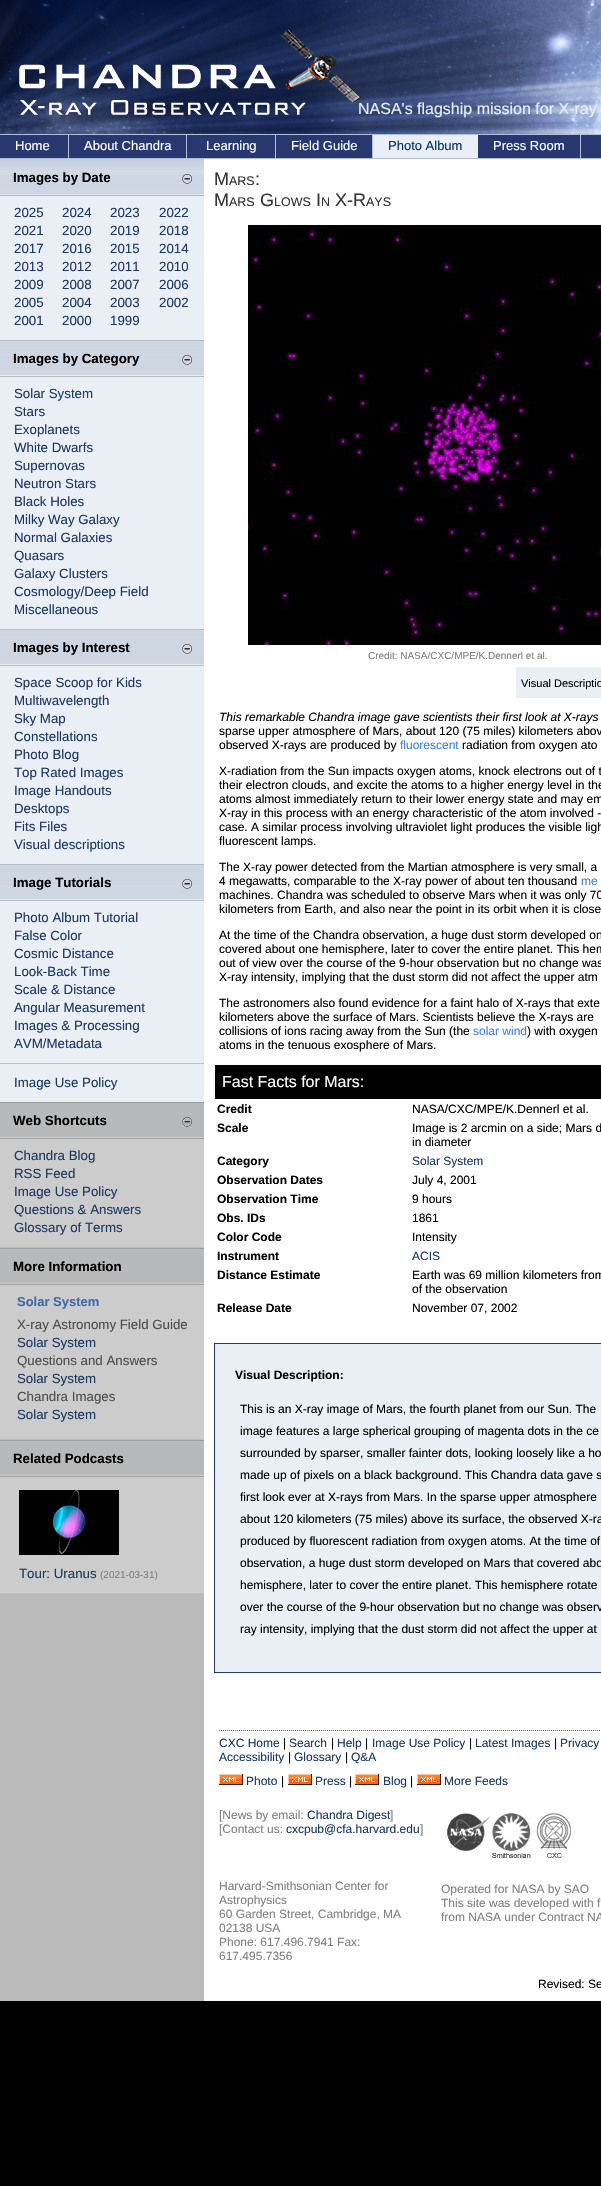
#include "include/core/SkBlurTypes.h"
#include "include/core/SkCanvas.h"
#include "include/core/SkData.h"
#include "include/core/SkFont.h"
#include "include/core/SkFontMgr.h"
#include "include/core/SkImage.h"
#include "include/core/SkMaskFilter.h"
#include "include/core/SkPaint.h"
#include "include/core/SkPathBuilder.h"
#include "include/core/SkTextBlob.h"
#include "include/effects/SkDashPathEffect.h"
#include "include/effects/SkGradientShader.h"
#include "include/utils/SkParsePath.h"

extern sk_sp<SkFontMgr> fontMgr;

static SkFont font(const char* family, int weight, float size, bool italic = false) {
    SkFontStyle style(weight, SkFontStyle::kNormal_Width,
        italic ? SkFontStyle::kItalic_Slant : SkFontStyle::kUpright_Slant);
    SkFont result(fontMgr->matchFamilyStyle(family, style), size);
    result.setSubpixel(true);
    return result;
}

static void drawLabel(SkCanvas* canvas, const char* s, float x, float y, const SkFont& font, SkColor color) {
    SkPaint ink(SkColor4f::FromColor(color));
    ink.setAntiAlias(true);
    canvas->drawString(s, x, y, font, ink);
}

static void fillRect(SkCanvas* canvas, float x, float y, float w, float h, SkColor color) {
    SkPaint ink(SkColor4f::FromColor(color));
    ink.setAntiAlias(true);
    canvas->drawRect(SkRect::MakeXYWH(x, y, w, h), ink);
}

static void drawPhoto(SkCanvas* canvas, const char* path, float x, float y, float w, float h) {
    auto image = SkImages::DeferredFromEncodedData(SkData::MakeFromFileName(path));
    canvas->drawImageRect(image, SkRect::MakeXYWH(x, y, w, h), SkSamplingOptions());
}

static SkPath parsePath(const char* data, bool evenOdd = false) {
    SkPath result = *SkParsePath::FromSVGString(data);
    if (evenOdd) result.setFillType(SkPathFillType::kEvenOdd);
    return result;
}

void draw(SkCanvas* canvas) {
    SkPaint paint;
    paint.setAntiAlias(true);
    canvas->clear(0xFF000000);
    drawPhoto(canvas, "assets/img1.png", 0, 0, 601, 134);
    drawPhoto(canvas, "assets/img2.png", 19, 29, 557, 91);
    SkFont font1 = font("Liberation Sans", 400, 16);
    drawLabel(canvas, "NASA's flagship mission for X-ray", 358, 114, font1, 0xFFE9EEF4);
    fillRect(canvas, 0, 134, 601, 1, 0xFFAEBFD7);
    fillRect(canvas, 0, 158, 601, 1, 0xFFAEBFD7);
    fillRect(canvas, 0, 135, 68, 23, 0xFF273870);
    fillRect(canvas, 68, 135, 1, 23, 0xFFAEBFD7);
    SkFont font2 = font("Liberation Sans", 400, 13);
    drawLabel(canvas, "Home", 15, 150, font2, 0xFFFFFFFF);
    fillRect(canvas, 69, 135, 117, 23, 0xFF273870);
    fillRect(canvas, 186, 135, 1, 23, 0xFFAEBFD7);
    drawLabel(canvas, "About Chandra", 84, 150, font2, 0xFFFFFFFF);
    fillRect(canvas, 187, 135, 88, 23, 0xFF273870);
    fillRect(canvas, 275, 135, 1, 23, 0xFFAEBFD7);
    drawLabel(canvas, "Learning", 206, 150, font2, 0xFFFFFFFF);
    fillRect(canvas, 276, 135, 96, 23, 0xFF273870);
    fillRect(canvas, 372, 135, 1, 23, 0xFFAEBFD7);
    drawLabel(canvas, "Field Guide", 291, 150, font2, 0xFFFFFFFF);
    fillRect(canvas, 373, 135, 105, 23, 0xFFEAEFF5);
    drawLabel(canvas, "Photo Album", 388, 150, font2, 0xFF003466);
    fillRect(canvas, 478, 135, 102, 23, 0xFF273870);
    fillRect(canvas, 580, 135, 1, 23, 0xFFAEBFD7);
    drawLabel(canvas, "Press Room", 493, 150, font2, 0xFFFFFFFF);
    fillRect(canvas, 581, 135, 20, 23, 0xFF273870);
    fillRect(canvas, 204, 159, 397, 1842, 0xFFFFFFFF);
    fillRect(canvas, 0, 1594, 204, 407, 0xFFBABABA);
    drawPhoto(canvas, "assets/img3.png", 0, 159, 204, 37);
    SkFont font3 = font("Liberation Sans", 700, 13.3f);
    drawLabel(canvas, "Images by Date", 13, 182, font3, 0xFF000000);
    drawPhoto(canvas, "assets/img4.png", 182, 174, 10, 10);
    fillRect(canvas, 0, 196, 204, 144, 0xFFEAEFF5);
    SkFont font4 = font("Liberation Sans", 400, 13.3f);
    drawLabel(canvas, "2025", 14, 217, font4, 0xFF1A3862);
    drawLabel(canvas, "2024", 62, 217, font4, 0xFF1A3862);
    drawLabel(canvas, "2023", 110, 217, font4, 0xFF1A3862);
    drawLabel(canvas, "2022", 159, 217, font4, 0xFF1A3862);
    drawLabel(canvas, "2021", 14, 235, font4, 0xFF1A3862);
    drawLabel(canvas, "2020", 62, 235, font4, 0xFF1A3862);
    drawLabel(canvas, "2019", 110, 235, font4, 0xFF1A3862);
    drawLabel(canvas, "2018", 159, 235, font4, 0xFF1A3862);
    drawLabel(canvas, "2017", 14, 253, font4, 0xFF1A3862);
    drawLabel(canvas, "2016", 62, 253, font4, 0xFF1A3862);
    drawLabel(canvas, "2015", 110, 253, font4, 0xFF1A3862);
    drawLabel(canvas, "2014", 159, 253, font4, 0xFF1A3862);
    drawLabel(canvas, "2013", 14, 271, font4, 0xFF1A3862);
    drawLabel(canvas, "2012", 62, 271, font4, 0xFF1A3862);
    drawLabel(canvas, "2011", 110, 271, font4, 0xFF1A3862);
    drawLabel(canvas, "2010", 159, 271, font4, 0xFF1A3862);
    drawLabel(canvas, "2009", 14, 289, font4, 0xFF1A3862);
    drawLabel(canvas, "2008", 62, 289, font4, 0xFF1A3862);
    drawLabel(canvas, "2007", 110, 289, font4, 0xFF1A3862);
    drawLabel(canvas, "2006", 159, 289, font4, 0xFF1A3862);
    drawLabel(canvas, "2005", 14, 307, font4, 0xFF1A3862);
    drawLabel(canvas, "2004", 62, 307, font4, 0xFF1A3862);
    drawLabel(canvas, "2003", 110, 307, font4, 0xFF1A3862);
    drawLabel(canvas, "2002", 159, 307, font4, 0xFF1A3862);
    drawLabel(canvas, "2001", 14, 325, font4, 0xFF1A3862);
    drawLabel(canvas, "2000", 62, 325, font4, 0xFF1A3862);
    drawLabel(canvas, "1999", 110, 325, font4, 0xFF1A3862);
    drawPhoto(canvas, "assets/img5.png", 0, 340, 204, 37);
    drawLabel(canvas, "Images by Category", 13, 363, font3, 0xFF000000);
    drawPhoto(canvas, "assets/img4.png", 182, 355, 10, 10);
    fillRect(canvas, 0, 377, 204, 252, 0xFFEAEFF5);
    drawLabel(canvas, "Solar System", 14, 398, font4, 0xFF1A3862);
    drawLabel(canvas, "Stars", 14, 416, font4, 0xFF1A3862);
    drawLabel(canvas, "Exoplanets", 14, 434, font4, 0xFF1A3862);
    drawLabel(canvas, "White Dwarfs", 14, 452, font4, 0xFF1A3862);
    drawLabel(canvas, "Supernovas", 14, 470, font4, 0xFF1A3862);
    drawLabel(canvas, "Neutron Stars", 14, 488, font4, 0xFF1A3862);
    drawLabel(canvas, "Black Holes", 14, 506, font4, 0xFF1A3862);
    drawLabel(canvas, "Milky Way Galaxy", 14, 524, font4, 0xFF1A3862);
    drawLabel(canvas, "Normal Galaxies", 14, 542, font4, 0xFF1A3862);
    drawLabel(canvas, "Quasars", 14, 560, font4, 0xFF1A3862);
    drawLabel(canvas, "Galaxy Clusters", 14, 578, font4, 0xFF1A3862);
    drawLabel(canvas, "Cosmology/Deep Field", 14, 596, font4, 0xFF1A3862);
    drawLabel(canvas, "Miscellaneous", 14, 614, font4, 0xFF1A3862);
    drawPhoto(canvas, "assets/img5.png", 0, 629, 204, 37);
    drawLabel(canvas, "Images by Interest", 13, 652, font3, 0xFF000000);
    drawPhoto(canvas, "assets/img4.png", 182, 644, 10, 10);
    fillRect(canvas, 0, 666, 204, 198, 0xFFEAEFF5);
    drawLabel(canvas, "Space Scoop for Kids", 14, 687, font4, 0xFF1A3862);
    drawLabel(canvas, "Multiwavelength", 14, 705, font4, 0xFF1A3862);
    drawLabel(canvas, "Sky Map", 14, 723, font4, 0xFF1A3862);
    drawLabel(canvas, "Constellations", 14, 741, font4, 0xFF1A3862);
    drawLabel(canvas, "Photo Blog", 14, 759, font4, 0xFF1A3862);
    drawLabel(canvas, "Top Rated Images", 14, 777, font4, 0xFF1A3862);
    drawLabel(canvas, "Image Handouts", 14, 795, font4, 0xFF1A3862);
    drawLabel(canvas, "Desktops", 14, 813, font4, 0xFF1A3862);
    drawLabel(canvas, "Fits Files", 14, 831, font4, 0xFF1A3862);
    drawLabel(canvas, "Visual descriptions", 14, 849, font4, 0xFF1A3862);
    drawPhoto(canvas, "assets/img5.png", 0, 864, 204, 37);
    drawLabel(canvas, "Image Tutorials", 13, 887, font3, 0xFF000000);
    drawPhoto(canvas, "assets/img4.png", 182, 879, 10, 10);
    fillRect(canvas, 0, 901, 204, 162, 0xFFEAEFF5);
    fillRect(canvas, 0, 1063, 204, 1, 0xFFBBC0C6);
    drawLabel(canvas, "Photo Album Tutorial", 14, 922, font4, 0xFF1A3862);
    drawLabel(canvas, "False Color", 14, 940, font4, 0xFF1A3862);
    drawLabel(canvas, "Cosmic Distance", 14, 958, font4, 0xFF1A3862);
    drawLabel(canvas, "Look-Back Time", 14, 976, font4, 0xFF1A3862);
    drawLabel(canvas, "Scale & Distance", 14, 994, font4, 0xFF1A3862);
    drawLabel(canvas, "Angular Measurement", 14, 1012, font4, 0xFF1A3862);
    drawLabel(canvas, "Images & Processing", 14, 1030, font4, 0xFF1A3862);
    drawLabel(canvas, "AVM/Metadata", 14, 1048, font4, 0xFF1A3862);
    fillRect(canvas, 0, 1064, 204, 38, 0xFFEAEFF5);
    drawLabel(canvas, "Image Use Policy", 14, 1087, font4, 0xFF1A3862);
    drawPhoto(canvas, "assets/img6.png", 0, 1102, 204, 37);
    drawLabel(canvas, "Web Shortcuts", 13, 1125, font3, 0xFF000000);
    drawPhoto(canvas, "assets/img7.png", 182, 1117, 10, 10);
    fillRect(canvas, 0, 1139, 204, 108, 0xFFCCCCCC);
    fillRect(canvas, 0, 1247, 204, 1, 0xFFBBC0C6);
    drawLabel(canvas, "Chandra Blog", 14, 1160, font4, 0xFF1A3862);
    drawLabel(canvas, "RSS Feed", 14, 1178, font4, 0xFF1A3862);
    drawLabel(canvas, "Image Use Policy", 14, 1196, font4, 0xFF1A3862);
    drawLabel(canvas, "Questions & Answers", 14, 1214, font4, 0xFF1A3862);
    drawLabel(canvas, "Glossary of Terms", 14, 1232, font4, 0xFF1A3862);
    drawPhoto(canvas, "assets/img6.png", 0, 1248, 204, 37);
    drawLabel(canvas, "More Information", 13, 1271, font3, 0xFF000000);
    fillRect(canvas, 0, 1285, 204, 154, 0xFFCCCCCC);
    fillRect(canvas, 0, 1439, 204, 1, 0xFFBBC0C6);
    SkFont font5 = font("Liberation Sans", 700, 13);
    drawLabel(canvas, "Solar System", 17, 1306, font5, 0xFF4169A5);
    drawLabel(canvas, "X-ray Astronomy Field Guide", 17, 1329, font4, 0xFF4C4C4C);
    drawLabel(canvas, "Solar System", 17, 1347, font4, 0xFF1A3862);
    drawLabel(canvas, "Questions and Answers", 17, 1365, font4, 0xFF4C4C4C);
    drawLabel(canvas, "Solar System", 17, 1383, font4, 0xFF1A3862);
    drawLabel(canvas, "Chandra Images", 17, 1401, font4, 0xFF4C4C4C);
    drawLabel(canvas, "Solar System", 17, 1419, font4, 0xFF1A3862);
    drawPhoto(canvas, "assets/img6.png", 0, 1440, 204, 37);
    drawLabel(canvas, "Related Podcasts", 13, 1463, font3, 0xFF000000);
    fillRect(canvas, 0, 1477, 204, 116, 0xFFCCCCCC);
    fillRect(canvas, 0, 1593, 204, 1, 0xFFBBC0C6);
    drawPhoto(canvas, "assets/img8.png", 19, 1490, 100, 65);
    drawLabel(canvas, "Tour: Uranus", 19, 1578, font4, 0xFF1A3862);
    SkFont font6 = font("Liberation Sans", 400, 10);
    drawLabel(canvas, "(2021-03-31)", 100, 1578, font6, 0xFF808080);
    SkFont font7 = font("Liberation Sans", 400, 18);
    drawLabel(canvas, "M", 214, 185, font7, 0xFF333333);
    SkFont font8 = font("Liberation Sans", 400, 12.5f);
    drawLabel(canvas, "ARS", 229, 185, font8, 0xFF333333);
    drawLabel(canvas, ":", 255, 185, font7, 0xFF333333);
    drawLabel(canvas, "M", 214, 206, font7, 0xFF333333);
    drawLabel(canvas, "ARS", 229, 206, font8, 0xFF333333);
    drawLabel(canvas, "G", 260, 206, font7, 0xFF333333);
    drawLabel(canvas, "LOWS", 274, 206, font8, 0xFF333333);
    drawLabel(canvas, "I", 316, 206, font7, 0xFF333333);
    drawLabel(canvas, "N", 321, 206, font8, 0xFF333333);
    drawLabel(canvas, "X-R", 335, 206, font7, 0xFF333333);
    drawLabel(canvas, "AYS", 366, 206, font8, 0xFF333333);
    drawPhoto(canvas, "assets/img9.png", 248, 225, 353, 420);
    drawLabel(canvas, "Credit: NASA/CXC/MPE/K.Dennerl et al.", 368, 659, font6, 0xFF808080);
    fillRect(canvas, 516, 667, 85, 31, 0xFFEAEFF5);
    SkFont font9 = font("Liberation Sans", 400, 11);
    drawLabel(canvas, "Visual Descriptio", 521, 687, font9, 0xFF000000);
    SkFont font10 = font("Liberation Sans", 400, 12, true);
    drawLabel(canvas, "This remarkable Chandra image gave scientists their first look at X-rays", 219, 721, font10, 0xFF000000);
    SkFont font11 = font("Liberation Sans", 400, 12);
    drawLabel(canvas, "sparse upper atmosphere of Mars, about 120 (75 miles) kilometers abov", 219, 735, font11, 0xFF000000);
    drawLabel(canvas, "observed X-rays are produced by", 219, 749, font11, 0xFF000000);
    drawLabel(canvas, "fluorescent", 400, 749, font11, 0xFF3A80F4);
    drawLabel(canvas, "radiation from oxygen ato", 462, 749, font11, 0xFF000000);
    drawLabel(canvas, "X-radiation from the Sun impacts oxygen atoms, knock electrons out of t", 219, 775, font11, 0xFF000000);
    drawLabel(canvas, "their electron clouds, and excite the atoms to a higher energy level in the", 219, 789, font11, 0xFF000000);
    drawLabel(canvas, "atoms almost immediately return to their lower energy state and may em", 219, 803, font11, 0xFF000000);
    drawLabel(canvas, "X-ray in this process with an energy characteristic of the atom involved -", 219, 817, font11, 0xFF000000);
    drawLabel(canvas, "case. A similar process involving ultraviolet light produces the visible ligh", 219, 831, font11, 0xFF000000);
    drawLabel(canvas, "fluorescent lamps.", 219, 845, font11, 0xFF000000);
    drawLabel(canvas, "The X-ray power detected from the Martian atmosphere is very small, a", 219, 871, font11, 0xFF000000);
    drawLabel(canvas, "4 megawatts, comparable to the X-ray power of about ten thousand", 219, 885, font11, 0xFF000000);
    drawLabel(canvas, "me", 581, 885, font11, 0xFF3A80F4);
    drawLabel(canvas, "machines. Chandra was scheduled to observe Mars when it was only 70", 219, 899, font11, 0xFF000000);
    drawLabel(canvas, "kilometers from Earth, and also near the point in its orbit when it is close", 219, 913, font11, 0xFF000000);
    drawLabel(canvas, "At the time of the Chandra observation, a huge dust storm developed on", 219, 939, font11, 0xFF000000);
    drawLabel(canvas, "covered about one hemisphere, later to cover the entire planet. This hem", 219, 953, font11, 0xFF000000);
    drawLabel(canvas, "out of view over the course of the 9-hour observation but no change was", 219, 967, font11, 0xFF000000);
    drawLabel(canvas, "X-ray intensity, implying that the dust storm did not affect the upper atm", 219, 981, font11, 0xFF000000);
    drawLabel(canvas, "The astronomers also found evidence for a faint halo of X-rays that exte", 219, 1007, font11, 0xFF000000);
    drawLabel(canvas, "kilometers above the surface of Mars. Scientists believe the X-rays are", 219, 1021, font11, 0xFF000000);
    drawLabel(canvas, "collisions of ions racing away from the Sun (the", 219, 1035, font11, 0xFF000000);
    drawLabel(canvas, "solar wind", 473, 1035, font11, 0xFF3A80F4);
    drawLabel(canvas, ") with oxygen", 527, 1035, font11, 0xFF000000);
    drawLabel(canvas, "atoms in the tenuous exosphere of Mars.", 219, 1049, font11, 0xFF000000);
    fillRect(canvas, 215, 1065, 386, 34, 0xFF000000);
    drawLabel(canvas, "Fast Facts for Mars:", 222, 1087, font1, 0xFFFFFFFF);
    SkFont font12 = font("Liberation Sans", 700, 12);
    drawLabel(canvas, "Credit", 217, 1113, font12, 0xFF000000);
    drawLabel(canvas, "NASA/CXC/MPE/K.Dennerl et al.", 412, 1113, font11, 0xFF000000);
    drawLabel(canvas, "Scale", 217, 1132, font12, 0xFF000000);
    drawLabel(canvas, "Image is 2 arcmin on a side; Mars d", 412, 1132, font11, 0xFF000000);
    drawLabel(canvas, "in diameter", 412, 1146, font11, 0xFF000000);
    drawLabel(canvas, "Category", 217, 1165, font12, 0xFF000000);
    drawLabel(canvas, "Solar System", 412, 1165, font11, 0xFF1A3862);
    drawLabel(canvas, "Observation Dates", 217, 1184, font12, 0xFF000000);
    drawLabel(canvas, "July 4, 2001", 412, 1184, font11, 0xFF000000);
    drawLabel(canvas, "Observation Time", 217, 1203, font12, 0xFF000000);
    drawLabel(canvas, "9 hours", 412, 1203, font11, 0xFF000000);
    drawLabel(canvas, "Obs. IDs", 217, 1222, font12, 0xFF000000);
    drawLabel(canvas, "1861", 412, 1222, font11, 0xFF000000);
    drawLabel(canvas, "Color Code", 217, 1241, font12, 0xFF000000);
    drawLabel(canvas, "Intensity", 412, 1241, font11, 0xFF000000);
    drawLabel(canvas, "Instrument", 217, 1260, font12, 0xFF000000);
    drawLabel(canvas, "ACIS", 412, 1260, font11, 0xFF1A3862);
    drawLabel(canvas, "Distance Estimate", 217, 1279, font12, 0xFF000000);
    drawLabel(canvas, "Earth was 69 million kilometers from", 412, 1279, font11, 0xFF000000);
    drawLabel(canvas, "of the observation", 412, 1293, font11, 0xFF000000);
    drawLabel(canvas, "Release Date", 217, 1312, font12, 0xFF000000);
    drawLabel(canvas, "November 07, 2002", 412, 1312, font11, 0xFF000000);
    paint.setColor(0xFFEAEFF5);
    canvas->drawRect(SkRect::MakeXYWH(214.5f, 1343.5f, 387, 329), paint);
    paint.setStroke(true);
    paint.setStrokeWidth(1);
    paint.setColor(0xFF273870);
    canvas->drawRect(SkRect::MakeXYWH(214.5f, 1343.5f, 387, 329), paint);
    drawLabel(canvas, "Visual Description:", 235, 1379, font12, 0xFF000000);
    drawLabel(canvas, "This is an X-ray image of Mars, the fourth planet from our Sun. The", 240, 1413, font11, 0xFF000000);
    drawLabel(canvas, "image features a large spherical grouping of magenta dots in the ce", 240, 1435, font11, 0xFF000000);
    drawLabel(canvas, "surrounded by sparser, smaller fainter dots, looking loosely like a ho", 240, 1457, font11, 0xFF000000);
    drawLabel(canvas, "made up of pixels on a black background. This Chandra data gave s", 240, 1479, font11, 0xFF000000);
    drawLabel(canvas, "first look ever at X-rays from Mars. In the sparse upper atmosphere", 240, 1501, font11, 0xFF000000);
    drawLabel(canvas, "about 120 kilometers (75 miles) above its surface, the observed X-ra", 240, 1523, font11, 0xFF000000);
    drawLabel(canvas, "produced by fluorescent radiation from oxygen atoms. At the time of", 240, 1545, font11, 0xFF000000);
    drawLabel(canvas, "observation, a huge dust storm developed on Mars that covered abo", 240, 1567, font11, 0xFF000000);
    drawLabel(canvas, "hemisphere, later to cover the entire planet. This hemisphere rotate", 240, 1589, font11, 0xFF000000);
    drawLabel(canvas, "over the course of the 9-hour observation but no change was observ", 240, 1611, font11, 0xFF000000);
    drawLabel(canvas, "ray intensity, implying that the dust storm did not affect the upper at", 240, 1633, font11, 0xFF000000);
    paint.setColor(0xFF666666);
    paint.setPathEffect(SkDashPathEffect::Make({{1, 1}}, 0));
    canvas->drawPath(parsePath("M219 1730.5H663"), paint);
    paint.setPathEffect(nullptr);
    drawLabel(canvas, "CXC Home", 219, 1747, font11, 0xFF1A3862);
    drawLabel(canvas, "|", 283, 1747, font11, 0xFF000000);
    drawLabel(canvas, "Search", 289, 1747, font11, 0xFF1A3862);
    drawLabel(canvas, "|", 331, 1747, font11, 0xFF000000);
    drawLabel(canvas, "Help", 337, 1747, font11, 0xFF1A3862);
    drawLabel(canvas, "|", 365, 1747, font11, 0xFF000000);
    drawLabel(canvas, "Image Use Policy", 372, 1747, font11, 0xFF1A3862);
    drawLabel(canvas, "|", 469, 1747, font11, 0xFF000000);
    drawLabel(canvas, "Latest Images", 475, 1747, font11, 0xFF1A3862);
    drawLabel(canvas, "|", 554, 1747, font11, 0xFF000000);
    drawLabel(canvas, "Privacy", 560, 1747, font11, 0xFF1A3862);
    drawLabel(canvas, "Accessibility", 219, 1761, font11, 0xFF1A3862);
    drawLabel(canvas, "|", 288, 1761, font11, 0xFF000000);
    drawLabel(canvas, "Glossary", 294, 1761, font11, 0xFF1A3862);
    drawLabel(canvas, "|", 345, 1761, font11, 0xFF000000);
    drawLabel(canvas, "Q&A", 351, 1761, font11, 0xFF1A3862);
    drawPhoto(canvas, "assets/img10.png", 219, 1774, 24, 11);
    drawLabel(canvas, "Photo", 246, 1785, font11, 0xFF1A3862);
    drawLabel(canvas, "|", 281, 1785, font11, 0xFF000000);
    drawPhoto(canvas, "assets/img10.png", 288, 1774, 24, 11);
    drawLabel(canvas, "Press", 315, 1785, font11, 0xFF1A3862);
    drawLabel(canvas, "|", 349, 1785, font11, 0xFF000000);
    drawPhoto(canvas, "assets/img10.png", 355, 1774, 24, 11);
    drawLabel(canvas, "Blog", 383, 1785, font11, 0xFF1A3862);
    drawLabel(canvas, "|", 410, 1785, font11, 0xFF000000);
    drawPhoto(canvas, "assets/img10.png", 417, 1774, 24, 11);
    drawLabel(canvas, "More Feeds", 444, 1785, font11, 0xFF1A3862);
    drawLabel(canvas, "[News by email:", 219, 1819, font11, 0xFF808080);
    drawLabel(canvas, "Chandra Digest", 307, 1819, font11, 0xFF1A3862);
    drawLabel(canvas, "]", 390, 1819, font11, 0xFF808080);
    drawLabel(canvas, "[Contact us:", 219, 1833, font11, 0xFF808080);
    drawLabel(canvas, "cxcpub@cfa.harvard.edu", 286, 1833, font11, 0xFF1A3862);
    drawLabel(canvas, "]", 420, 1833, font11, 0xFF808080);
    drawLabel(canvas, "Harvard-Smithsonian Center for", 219, 1890, font11, 0xFF808080);
    drawLabel(canvas, "Astrophysics", 219, 1904, font11, 0xFF808080);
    drawLabel(canvas, "60 Garden Street, Cambridge, MA", 219, 1918, font11, 0xFF808080);
    drawLabel(canvas, "02138 USA", 219, 1932, font11, 0xFF808080);
    drawLabel(canvas, "Phone: 617.496.7941 Fax:", 219, 1946, font11, 0xFF808080);
    drawLabel(canvas, "617.495.7356", 219, 1960, font11, 0xFF808080);
    drawPhoto(canvas, "assets/img11.png", 445, 1813, 126, 45);
    drawLabel(canvas, "Operated for NASA by SAO", 441, 1893, font11, 0xFF808080);
    drawLabel(canvas, "This site was developed with f", 441, 1907, font11, 0xFF808080);
    drawLabel(canvas, "from NASA under Contract NA", 441, 1921, font11, 0xFF808080);
    drawLabel(canvas, "Revised: Se", 538, 1988, font11, 0xFF000000);
}
